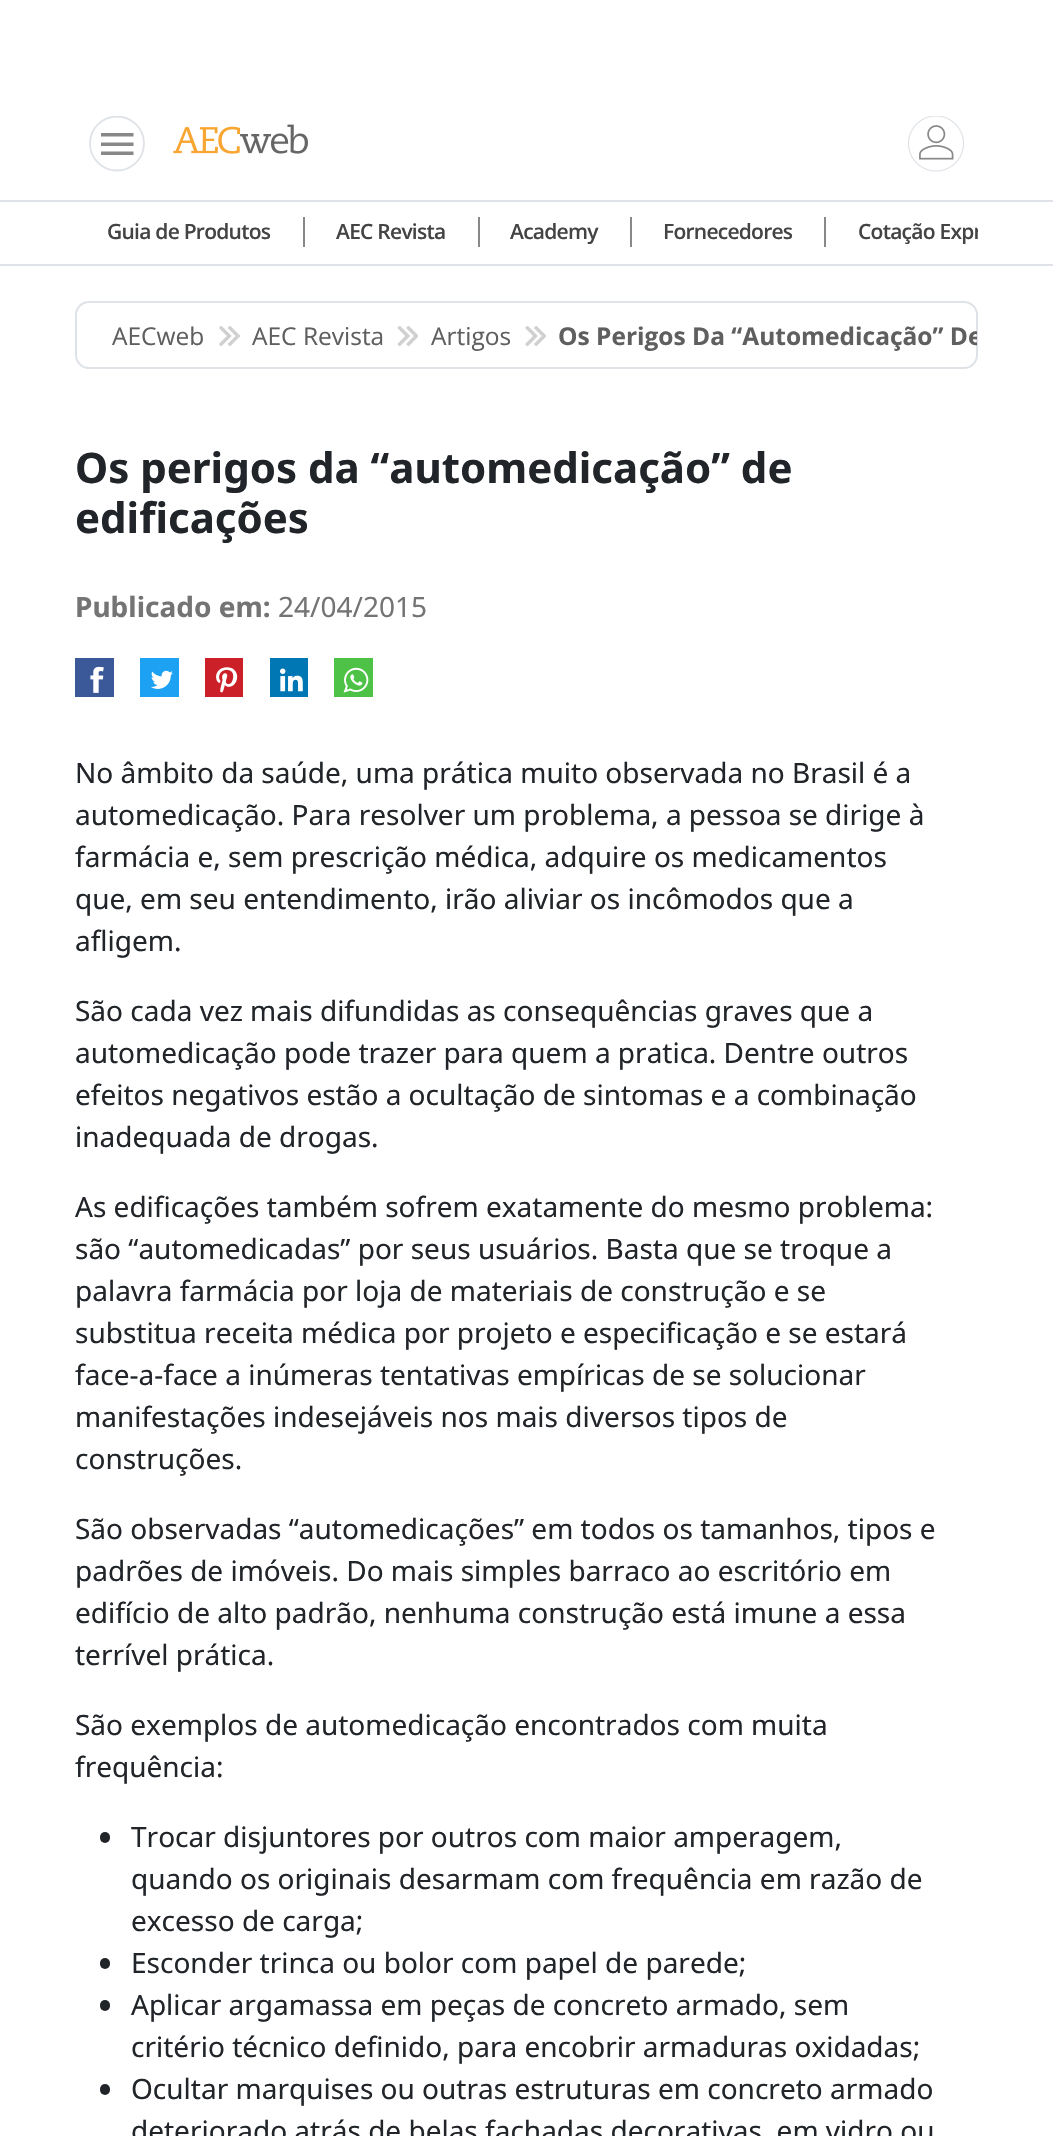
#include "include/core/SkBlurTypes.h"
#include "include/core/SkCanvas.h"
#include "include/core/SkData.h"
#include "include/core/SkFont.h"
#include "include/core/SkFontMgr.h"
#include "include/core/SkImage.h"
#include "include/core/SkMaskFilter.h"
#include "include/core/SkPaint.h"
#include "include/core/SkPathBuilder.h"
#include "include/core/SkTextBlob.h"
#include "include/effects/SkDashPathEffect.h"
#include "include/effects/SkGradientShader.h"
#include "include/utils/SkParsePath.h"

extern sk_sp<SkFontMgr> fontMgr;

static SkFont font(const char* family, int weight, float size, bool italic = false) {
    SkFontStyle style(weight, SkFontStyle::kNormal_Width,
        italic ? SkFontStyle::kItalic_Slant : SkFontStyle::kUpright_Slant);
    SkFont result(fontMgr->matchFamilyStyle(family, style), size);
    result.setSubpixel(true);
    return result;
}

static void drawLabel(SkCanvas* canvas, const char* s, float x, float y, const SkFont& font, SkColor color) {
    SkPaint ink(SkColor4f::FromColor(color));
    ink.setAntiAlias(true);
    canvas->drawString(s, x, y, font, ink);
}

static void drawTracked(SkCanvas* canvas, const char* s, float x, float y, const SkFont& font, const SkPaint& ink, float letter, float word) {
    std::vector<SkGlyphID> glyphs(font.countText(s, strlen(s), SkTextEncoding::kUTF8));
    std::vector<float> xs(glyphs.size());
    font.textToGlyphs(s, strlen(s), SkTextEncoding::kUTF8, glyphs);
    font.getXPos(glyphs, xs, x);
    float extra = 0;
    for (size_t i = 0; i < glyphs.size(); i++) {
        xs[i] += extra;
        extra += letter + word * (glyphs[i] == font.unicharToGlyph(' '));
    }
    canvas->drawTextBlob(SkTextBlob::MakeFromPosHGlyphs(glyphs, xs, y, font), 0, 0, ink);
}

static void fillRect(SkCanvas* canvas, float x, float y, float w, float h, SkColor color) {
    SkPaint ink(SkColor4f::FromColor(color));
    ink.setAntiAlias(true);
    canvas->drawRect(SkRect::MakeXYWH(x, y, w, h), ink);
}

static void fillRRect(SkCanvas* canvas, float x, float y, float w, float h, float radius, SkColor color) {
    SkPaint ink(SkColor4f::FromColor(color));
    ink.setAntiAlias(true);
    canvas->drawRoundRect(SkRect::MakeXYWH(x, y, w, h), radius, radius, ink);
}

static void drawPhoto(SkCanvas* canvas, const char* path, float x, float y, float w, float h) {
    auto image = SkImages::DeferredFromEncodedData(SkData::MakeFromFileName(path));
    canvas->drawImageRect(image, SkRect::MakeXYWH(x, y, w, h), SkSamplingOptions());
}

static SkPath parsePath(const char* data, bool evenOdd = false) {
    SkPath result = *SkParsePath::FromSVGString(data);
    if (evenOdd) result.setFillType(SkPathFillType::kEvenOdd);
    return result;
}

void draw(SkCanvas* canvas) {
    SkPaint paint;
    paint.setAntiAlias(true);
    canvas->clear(0xFFFFFFFF);
    fillRect(canvas, 0, 200, 1053, 2, 0xFFDFE3E7);
    canvas->save();
    canvas->clipRect(SkRect::MakeXYWH(89, 116, 56, 56));
    paint.setStroke(true);
    paint.setStrokeWidth(1.8f);
    paint.setColor(0xFFDFE3E7);
    canvas->drawCircle(117, 143.5f, 27, paint);
    canvas->restore();
    paint.setStroke(false);
    paint.setColor(0xFF888888);
    canvas->drawPath(parsePath("M101 133H133.5V136.5H101ZM101 151.5H133.5V155H101ZM101 142.5H133.5V146H101Z", true), paint);
    drawPhoto(canvas, "assets/img1.png", 173, 124, 135, 30);
    drawPhoto(canvas, "assets/img2.png", 908, 116, 56, 56);
    fillRect(canvas, 0, 264, 1053, 2, 0xFFDFE3E7);
    fillRect(canvas, 303, 217, 2, 30, 0xFF888888);
    SkFont font1 = font("Open Sans", 600, 21);
    paint.setColor(0xFF444444);
    drawTracked(canvas, "Guia de Produtos", 107, 239, font1, paint, -0.75f, 0);
    fillRect(canvas, 478, 217, 2, 30, 0xFF888888);
    drawTracked(canvas, "AEC Revista", 336, 239, font1, paint, -0.75f, 0);
    fillRect(canvas, 630, 217, 2, 30, 0xFF888888);
    drawTracked(canvas, "Academy", 510, 239, font1, paint, -0.75f, 0);
    fillRect(canvas, 824, 217, 2, 30, 0xFF888888);
    drawTracked(canvas, "Fornecedores", 663, 239, font1, paint, -0.75f, 0);
    canvas->save();
    canvas->clipRect(SkRect::MakeXYWH(75, 200, 903, 64));
    drawTracked(canvas, "Cotação Expr", 858, 239, font1, paint, -0.75f, 0);
    canvas->restore();
    paint.setStroke(true);
    paint.setStrokeWidth(2);
    paint.setColor(0xFFDFE3E7);
    canvas->drawRoundRect(SkRect::MakeXYWH(76, 302, 901, 66), 13, 13, paint);
    SkFont font2 = font("Open Sans", 400, 24.5f);
    drawLabel(canvas, "AECweb", 112, 345, font2, 0xFF5F5F5F);
    drawPhoto(canvas, "assets/img3.png", 219, 326, 21, 21);
    drawLabel(canvas, "AEC Revista", 252, 345, font2, 0xFF5F5F5F);
    drawPhoto(canvas, "assets/img4.png", 397, 326, 21, 21);
    drawLabel(canvas, "Artigos", 431, 345, font2, 0xFF5F5F5F);
    drawPhoto(canvas, "assets/img5.png", 525, 326, 21, 21);
    canvas->save();
    canvas->clipPath(parsePath("M89 303H965C971.5 303 977 308.5 977 315V356C977 362.5 971.5 368 965 368H89C82.5 368 77 362.5 77 356V315C77 308.5 82.5 303 89 303Z"), true);
    SkFont font3 = font("Open Sans", 700, 24.5f);
    drawLabel(canvas, "Os Perigos Da “Automedicação” De", 558, 345, font3, 0xFF5F5F5F);
    canvas->restore();
    SkFont font4 = font("Noto Sans", 700, 42);
    drawLabel(canvas, "Os perigos da “automedicação” de", 75, 483, font4, 0xFF212529);
    drawLabel(canvas, "edificações", 75, 533, font4, 0xFF212529);
    SkFont font5 = font("Noto Sans", 700, 28);
    drawLabel(canvas, "Publicado em:", 75, 617, font5, 0xFF747474);
    SkFont font6 = font("Noto Sans", 400, 28);
    drawLabel(canvas, "24/04/2015", 278, 617, font6, 0xFF747474);
    drawPhoto(canvas, "assets/img6.png", 75, 658, 39, 39);
    drawPhoto(canvas, "assets/img7.png", 140, 658, 39, 39);
    drawPhoto(canvas, "assets/img8.png", 205, 658, 38, 39);
    drawPhoto(canvas, "assets/img9.png", 270, 658, 38, 39);
    drawPhoto(canvas, "assets/img10.png", 334, 658, 39, 39);
    drawLabel(canvas, "No âmbito da saúde, uma prática muito observada no Brasil é a", 75, 783, font6, 0xFF212529);
    drawLabel(canvas, "automedicação. Para resolver um problema, a pessoa se dirige à", 75, 825, font6, 0xFF212529);
    drawLabel(canvas, "farmácia e, sem prescrição médica, adquire os medicamentos", 75, 867, font6, 0xFF212529);
    drawLabel(canvas, "que, em seu entendimento, irão aliviar os incômodos que a", 75, 909, font6, 0xFF212529);
    drawLabel(canvas, "afligem.", 75, 951, font6, 0xFF212529);
    drawLabel(canvas, "São cada vez mais difundidas as consequências graves que a", 75, 1021, font6, 0xFF212529);
    drawLabel(canvas, "automedicação pode trazer para quem a pratica. Dentre outros", 75, 1063, font6, 0xFF212529);
    drawLabel(canvas, "efeitos negativos estão a ocultação de sintomas e a combinação", 75, 1105, font6, 0xFF212529);
    drawLabel(canvas, "inadequada de drogas.", 75, 1147, font6, 0xFF212529);
    drawLabel(canvas, "As edificações também sofrem exatamente do mesmo problema:", 75, 1217, font6, 0xFF212529);
    drawLabel(canvas, "são “automedicadas” por seus usuários. Basta que se troque a", 75, 1259, font6, 0xFF212529);
    drawLabel(canvas, "palavra farmácia por loja de materiais de construção e se", 75, 1301, font6, 0xFF212529);
    drawLabel(canvas, "substitua receita médica por projeto e especificação e se estará", 75, 1343, font6, 0xFF212529);
    drawLabel(canvas, "face-a-face a inúmeras tentativas empíricas de se solucionar", 75, 1385, font6, 0xFF212529);
    drawLabel(canvas, "manifestações indesejáveis nos mais diversos tipos de", 75, 1427, font6, 0xFF212529);
    drawLabel(canvas, "construções.", 75, 1469, font6, 0xFF212529);
    drawLabel(canvas, "São observadas “automedicações” em todos os tamanhos, tipos e", 75, 1539, font6, 0xFF212529);
    drawLabel(canvas, "padrões de imóveis. Do mais simples barraco ao escritório em", 75, 1581, font6, 0xFF212529);
    drawLabel(canvas, "edifício de alto padrão, nenhuma construção está imune a essa", 75, 1623, font6, 0xFF212529);
    drawLabel(canvas, "terrível prática.", 75, 1665, font6, 0xFF212529);
    drawLabel(canvas, "São exemplos de automedicação encontrados com muita", 75, 1735, font6, 0xFF212529);
    drawLabel(canvas, "frequência:", 75, 1777, font6, 0xFF212529);
    fillRRect(canvas, 100, 1832, 10, 11, 5, 0xFF212529);
    drawLabel(canvas, "Trocar disjuntores por outros com maior amperagem,", 131, 1847, font6, 0xFF212529);
    drawLabel(canvas, "quando os originais desarmam com frequência em razão de", 131, 1889, font6, 0xFF212529);
    drawLabel(canvas, "excesso de carga;", 131, 1931, font6, 0xFF212529);
    fillRRect(canvas, 100, 1958, 10, 11, 5, 0xFF212529);
    drawLabel(canvas, "Esconder trinca ou bolor com papel de parede;", 131, 1973, font6, 0xFF212529);
    fillRRect(canvas, 100, 2000, 10, 11, 5, 0xFF212529);
    drawLabel(canvas, "Aplicar argamassa em peças de concreto armado, sem", 131, 2015, font6, 0xFF212529);
    drawLabel(canvas, "critério técnico definido, para encobrir armaduras oxidadas;", 131, 2057, font6, 0xFF212529);
    fillRRect(canvas, 100, 2084, 10, 11, 5, 0xFF212529);
    drawLabel(canvas, "Ocultar marquises ou outras estruturas em concreto armado", 131, 2099, font6, 0xFF212529);
    drawLabel(canvas, "deteriorado atrás de belas fachadas decorativas, em vidro ou", 131, 2141, font6, 0xFF212529);
}
